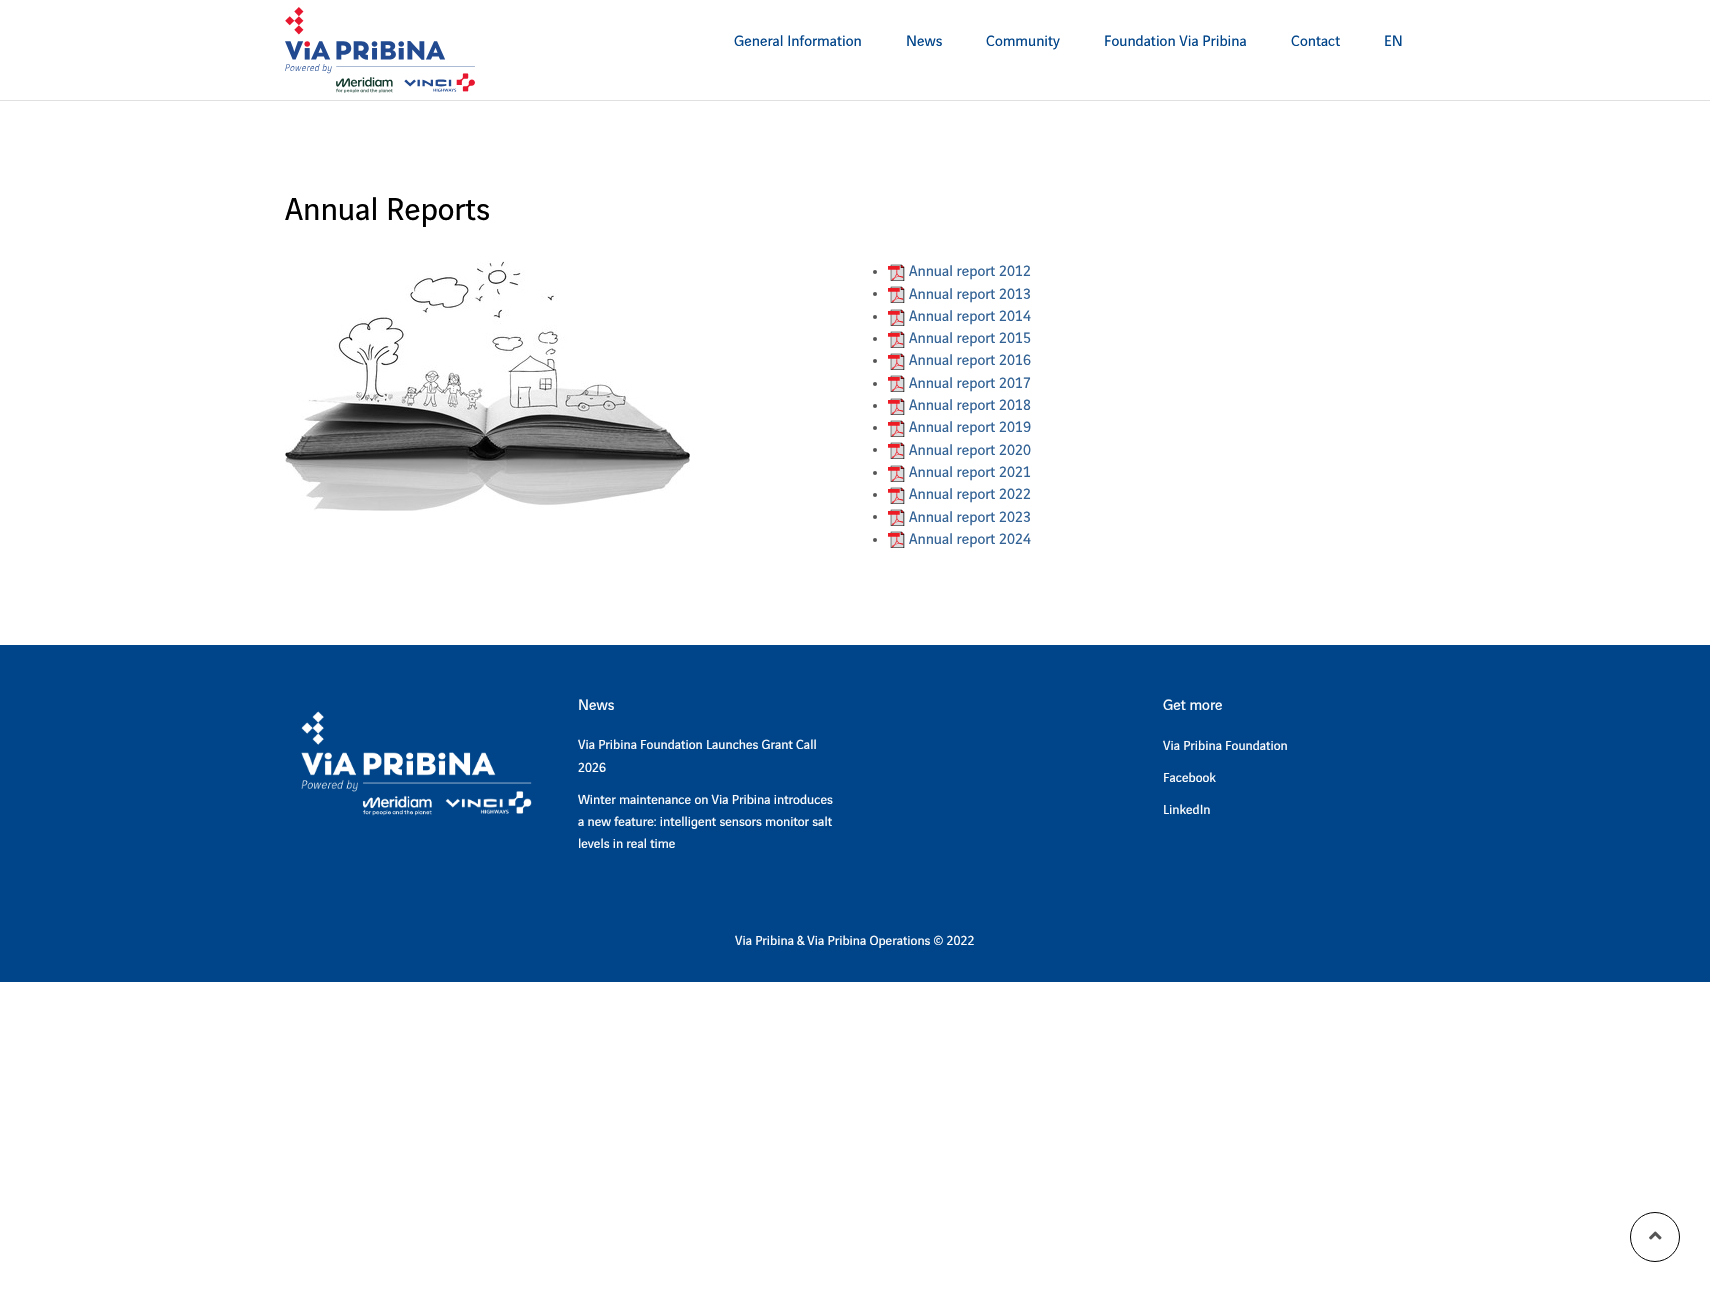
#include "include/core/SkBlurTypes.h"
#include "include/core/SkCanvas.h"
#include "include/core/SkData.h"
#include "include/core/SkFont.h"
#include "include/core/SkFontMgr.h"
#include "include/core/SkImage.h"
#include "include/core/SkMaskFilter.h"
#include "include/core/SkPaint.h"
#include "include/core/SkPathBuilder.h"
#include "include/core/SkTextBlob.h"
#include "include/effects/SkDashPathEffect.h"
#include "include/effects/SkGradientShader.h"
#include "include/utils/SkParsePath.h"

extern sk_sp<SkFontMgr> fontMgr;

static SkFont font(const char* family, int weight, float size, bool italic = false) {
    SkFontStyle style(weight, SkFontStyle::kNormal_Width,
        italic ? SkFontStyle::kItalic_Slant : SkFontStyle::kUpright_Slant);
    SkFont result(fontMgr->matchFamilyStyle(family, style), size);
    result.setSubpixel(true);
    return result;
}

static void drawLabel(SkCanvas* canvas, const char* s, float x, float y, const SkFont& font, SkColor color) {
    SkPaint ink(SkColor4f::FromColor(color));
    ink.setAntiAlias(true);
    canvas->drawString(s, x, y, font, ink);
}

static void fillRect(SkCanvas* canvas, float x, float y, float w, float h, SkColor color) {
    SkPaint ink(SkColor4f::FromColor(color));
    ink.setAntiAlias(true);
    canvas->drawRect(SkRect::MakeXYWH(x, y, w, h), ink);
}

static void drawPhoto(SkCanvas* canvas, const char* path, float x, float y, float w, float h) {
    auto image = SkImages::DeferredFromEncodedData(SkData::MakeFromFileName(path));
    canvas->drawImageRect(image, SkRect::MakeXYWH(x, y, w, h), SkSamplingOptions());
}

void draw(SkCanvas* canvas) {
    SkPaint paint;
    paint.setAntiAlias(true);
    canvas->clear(0xFFFFFFFF);
    fillRect(canvas, 0, 100, 1710, 1, 0xFFE0E0E0);
    drawPhoto(canvas, "assets/img1.png", 285, 7, 190, 86);
    SkFont font1 = font("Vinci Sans", 400, 16);
    drawLabel(canvas, "General Information", 734, 46, font1, 0xFF004489);
    drawLabel(canvas, "News", 906, 46, font1, 0xFF004489);
    drawLabel(canvas, "Community", 986, 46, font1, 0xFF004489);
    drawLabel(canvas, "Foundation Via Pribina", 1104, 46, font1, 0xFF004489);
    drawLabel(canvas, "Contact", 1291, 46, font1, 0xFF004489);
    drawLabel(canvas, "EN", 1384, 46, font1, 0xFF004489);
    SkFont font2 = font("Vinci Sans", 400, 34);
    drawLabel(canvas, "Annual Reports", 285, 220, font2, 0xFF000000);
    drawPhoto(canvas, "assets/img2.png", 285, 261, 405, 250);
    paint.setColor(0xFF555555);
    canvas->drawCircle(875, 272, 2, paint);
    drawPhoto(canvas, "assets/img3.png", 888, 264, 17, 17);
    drawLabel(canvas, "Annual report 2012", 909, 276, font1, 0xFF326295);
    canvas->drawCircle(875, 294, 2, paint);
    drawPhoto(canvas, "assets/img3.png", 888, 286, 17, 17);
    drawLabel(canvas, "Annual report 2013", 909, 299, font1, 0xFF326295);
    canvas->drawCircle(875, 317, 2, paint);
    drawPhoto(canvas, "assets/img3.png", 888, 309, 17, 17);
    drawLabel(canvas, "Annual report 2014", 909, 321, font1, 0xFF326295);
    canvas->drawCircle(875, 339, 2, paint);
    drawPhoto(canvas, "assets/img3.png", 888, 331, 17, 17);
    drawLabel(canvas, "Annual report 2015", 909, 343, font1, 0xFF326295);
    canvas->drawCircle(875, 361, 2, paint);
    drawPhoto(canvas, "assets/img3.png", 888, 353, 17, 17);
    drawLabel(canvas, "Annual report 2016", 909, 365, font1, 0xFF326295);
    canvas->drawCircle(875, 384, 2, paint);
    drawPhoto(canvas, "assets/img3.png", 888, 375, 17, 17);
    drawLabel(canvas, "Annual report 2017", 909, 388, font1, 0xFF326295);
    canvas->drawCircle(875, 406, 2, paint);
    drawPhoto(canvas, "assets/img3.png", 888, 398, 17, 17);
    drawLabel(canvas, "Annual report 2018", 909, 410, font1, 0xFF326295);
    canvas->drawCircle(875, 428, 2, paint);
    drawPhoto(canvas, "assets/img3.png", 888, 420, 17, 17);
    drawLabel(canvas, "Annual report 2019", 909, 432, font1, 0xFF326295);
    canvas->drawCircle(875, 450, 2, paint);
    drawPhoto(canvas, "assets/img3.png", 888, 442, 17, 17);
    drawLabel(canvas, "Annual report 2020", 909, 455, font1, 0xFF326295);
    canvas->drawCircle(875, 473, 2, paint);
    drawPhoto(canvas, "assets/img3.png", 888, 465, 17, 17);
    drawLabel(canvas, "Annual report 2021", 909, 477, font1, 0xFF326295);
    canvas->drawCircle(875, 495, 2, paint);
    drawPhoto(canvas, "assets/img3.png", 888, 487, 17, 17);
    drawLabel(canvas, "Annual report 2022", 909, 499, font1, 0xFF326295);
    canvas->drawCircle(875, 517, 2, paint);
    drawPhoto(canvas, "assets/img3.png", 888, 509, 17, 17);
    drawLabel(canvas, "Annual report 2023", 909, 522, font1, 0xFF326295);
    canvas->drawCircle(875, 540, 2, paint);
    drawPhoto(canvas, "assets/img3.png", 888, 531, 17, 17);
    drawLabel(canvas, "Annual report 2024", 909, 544, font1, 0xFF326295);
    fillRect(canvas, 0, 645, 1710, 337, 0xFF004489);
    drawPhoto(canvas, "assets/img4.png", 301, 711, 231, 105);
    drawLabel(canvas, "News", 578, 710, font1, 0xFFFFFFFF);
    SkFont font3 = font("Vinci Sans", 400, 14);
    drawLabel(canvas, "Via Pribina Foundation Launches Grant Call", 578, 749, font3, 0xFFFFFFFF);
    drawLabel(canvas, "2026", 578, 772, font3, 0xFFFFFFFF);
    drawLabel(canvas, "Winter maintenance on Via Pribina introduces", 578, 804, font3, 0xFFFFFFFF);
    drawLabel(canvas, "a new feature: intelligent sensors monitor salt", 578, 826, font3, 0xFFFFFFFF);
    drawLabel(canvas, "levels in real time", 578, 848, font3, 0xFFFFFFFF);
    drawLabel(canvas, "Get more", 1163, 710, font1, 0xFFFFFFFF);
    drawLabel(canvas, "Via Pribina Foundation", 1163, 750, font3, 0xFFFFFFFF);
    drawLabel(canvas, "Facebook", 1163, 782, font3, 0xFFFFFFFF);
    drawLabel(canvas, "LinkedIn", 1163, 814, font3, 0xFFFFFFFF);
    drawLabel(canvas, "Via Pribina & Via Pribina Operations © 2022", 735, 945, font3, 0xFFFFFFFF);
    paint.setStroke(true);
    paint.setStrokeWidth(1);
    paint.setColor(0xFF000000);
    canvas->drawCircle(1655, 1237, 24.5f, paint);
    drawPhoto(canvas, "assets/img5.png", 1649, 1231, 13, 9);
}
